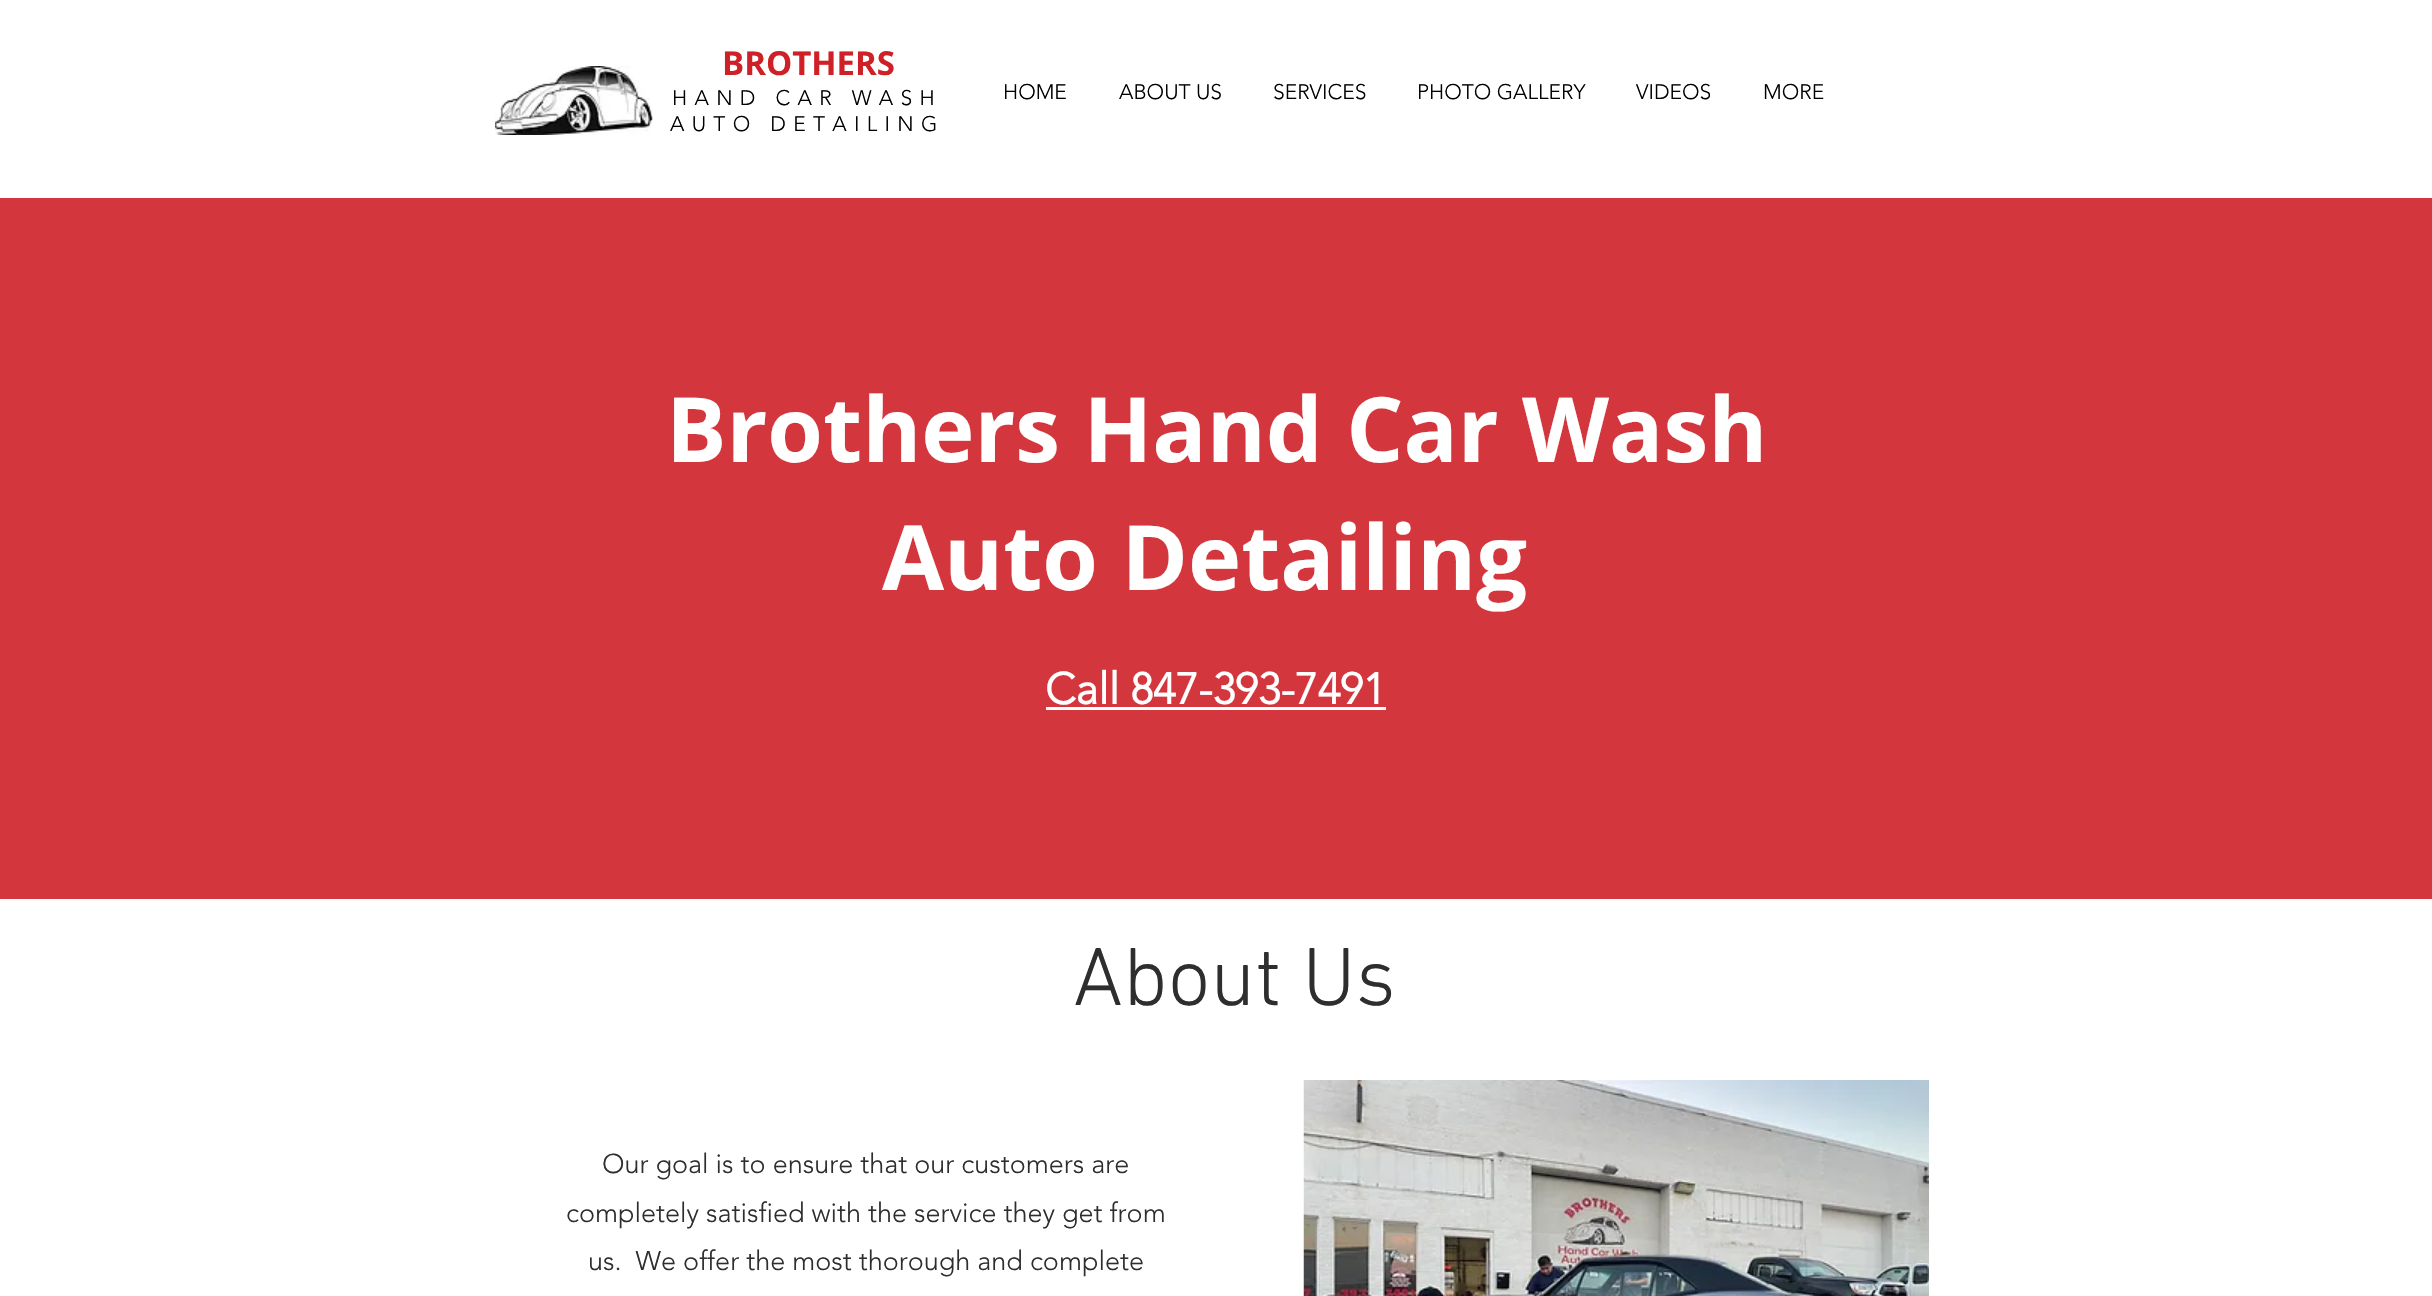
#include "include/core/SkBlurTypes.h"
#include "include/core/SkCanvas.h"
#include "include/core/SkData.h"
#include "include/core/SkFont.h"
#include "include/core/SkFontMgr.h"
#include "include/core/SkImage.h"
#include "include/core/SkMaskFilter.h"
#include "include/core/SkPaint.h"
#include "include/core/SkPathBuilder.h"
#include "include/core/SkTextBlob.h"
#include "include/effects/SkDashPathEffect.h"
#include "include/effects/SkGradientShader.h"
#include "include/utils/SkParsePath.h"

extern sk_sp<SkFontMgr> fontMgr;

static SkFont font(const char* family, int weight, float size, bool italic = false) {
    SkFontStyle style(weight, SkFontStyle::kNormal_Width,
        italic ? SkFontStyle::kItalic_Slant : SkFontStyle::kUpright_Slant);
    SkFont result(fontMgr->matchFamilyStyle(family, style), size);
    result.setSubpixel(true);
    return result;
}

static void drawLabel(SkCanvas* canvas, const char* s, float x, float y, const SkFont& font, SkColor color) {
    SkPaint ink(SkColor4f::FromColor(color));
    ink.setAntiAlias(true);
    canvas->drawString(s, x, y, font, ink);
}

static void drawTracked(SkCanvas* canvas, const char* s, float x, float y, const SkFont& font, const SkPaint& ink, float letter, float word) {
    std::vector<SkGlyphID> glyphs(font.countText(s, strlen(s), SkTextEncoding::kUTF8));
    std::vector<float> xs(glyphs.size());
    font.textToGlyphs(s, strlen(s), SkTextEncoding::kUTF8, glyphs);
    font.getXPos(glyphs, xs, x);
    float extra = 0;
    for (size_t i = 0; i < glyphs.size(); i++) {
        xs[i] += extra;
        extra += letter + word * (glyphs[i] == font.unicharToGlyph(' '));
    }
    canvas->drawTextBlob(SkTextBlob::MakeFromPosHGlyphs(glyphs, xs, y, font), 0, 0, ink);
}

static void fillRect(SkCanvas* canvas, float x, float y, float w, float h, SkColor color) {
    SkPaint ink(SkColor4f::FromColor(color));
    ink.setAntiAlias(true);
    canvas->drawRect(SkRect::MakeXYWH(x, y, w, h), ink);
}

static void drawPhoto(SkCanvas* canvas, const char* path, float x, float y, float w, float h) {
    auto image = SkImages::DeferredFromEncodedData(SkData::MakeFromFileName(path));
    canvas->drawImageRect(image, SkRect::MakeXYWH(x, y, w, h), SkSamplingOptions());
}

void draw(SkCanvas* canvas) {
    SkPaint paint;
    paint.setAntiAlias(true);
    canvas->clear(0xFFFFFFFF);
    SkFont font1 = font("Open Sans", 700, 33);
    drawLabel(canvas, "BROTHERS", 722, 75, font1, 0xFFCE2026);
    drawPhoto(canvas, "assets/img1.png", 495, 66, 158, 69);
    SkFont font2 = font("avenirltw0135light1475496", 300, 21);
    paint.setColor(0xFF000000);
    drawTracked(canvas, "HAND CAR WASH", 672, 105, font2, paint, 7.3f, 0);
    drawTracked(canvas, "AUTO DETAILING", 670, 131, font2, paint, 7.3f, 0);
    drawLabel(canvas, "HOME", 1003, 99, font2, 0xFF000000);
    drawLabel(canvas, "ABOUT US", 1119, 99, font2, 0xFF000000);
    drawLabel(canvas, "SERVICES", 1273, 99, font2, 0xFF000000);
    drawLabel(canvas, "PHOTO GALLERY", 1417, 99, font2, 0xFF000000);
    drawLabel(canvas, "VIDEOS", 1636, 99, font2, 0xFF000000);
    drawLabel(canvas, "MORE", 1763, 99, font2, 0xFF000000);
    fillRect(canvas, 0, 198, 2432, 701, 0xFFD3363C);
    SkFont font3 = font("Open Sans", 700, 90);
    drawLabel(canvas, "Brothers Hand Car Wash", 666, 462, font3, 0xFFFFFFFF);
    drawLabel(canvas, "Auto Detailing", 882, 590, font3, 0xFFFFFFFF);
    SkFont font4 = font("avenirltw0135light1475496", 700, 43.5f);
    drawLabel(canvas, "Call 847-393-7491", 1045, 704, font4, 0xFFFFFFFF);
    fillRect(canvas, 1046, 707, 340, 3, 0xFFFFFFFF);
    SkFont font5 = font("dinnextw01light", 300, 84);
    drawLabel(canvas, "About Us", 1073, 1005, font5, 0xFF2F2E2E);
    SkFont font6 = font("avenirltw0135light1475496", 300, 27);
    drawLabel(canvas, "Our goal is to ensure that our customers are", 602, 1173, font6, 0xFF2F2E2E);
    drawLabel(canvas, "completely satisfied with the service they get from", 566, 1222, font6, 0xFF2F2E2E);
    drawLabel(canvas, "us.  We offer the most thorough and complete", 588, 1270, font6, 0xFF2F2E2E);
    drawPhoto(canvas, "assets/img2.png", 1303, 1080, 626, 216);
}
